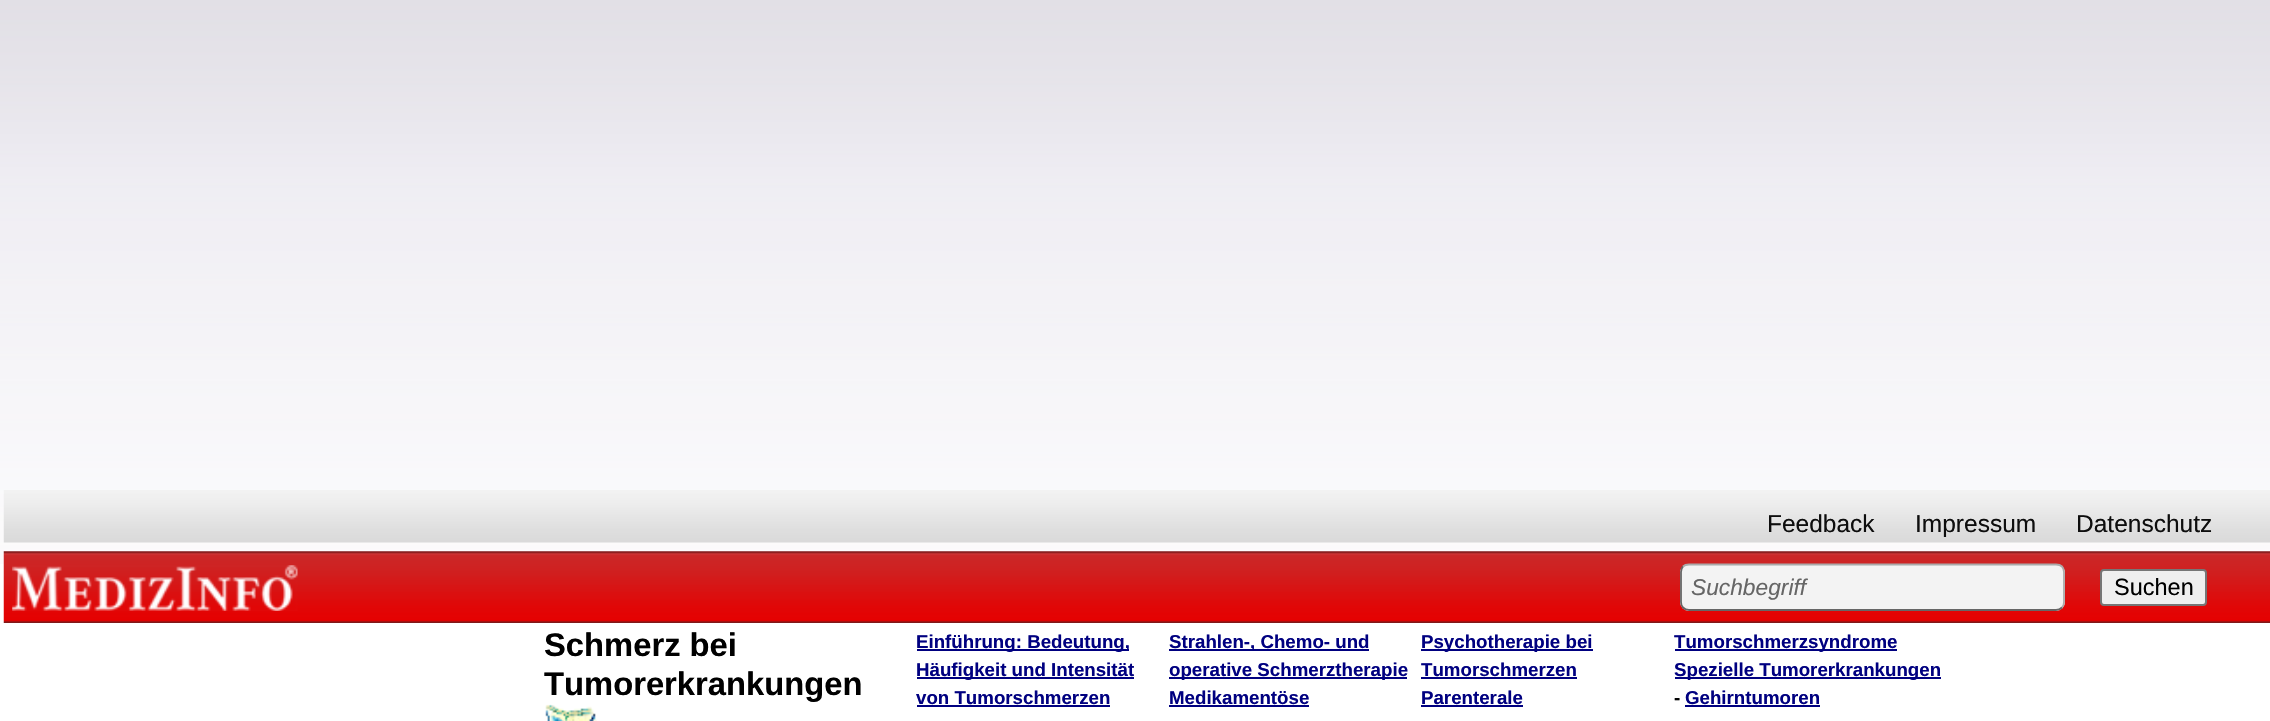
#include "include/core/SkBlurTypes.h"
#include "include/core/SkCanvas.h"
#include "include/core/SkData.h"
#include "include/core/SkFont.h"
#include "include/core/SkFontMgr.h"
#include "include/core/SkImage.h"
#include "include/core/SkMaskFilter.h"
#include "include/core/SkPaint.h"
#include "include/core/SkPathBuilder.h"
#include "include/core/SkTextBlob.h"
#include "include/effects/SkDashPathEffect.h"
#include "include/effects/SkGradientShader.h"
#include "include/utils/SkParsePath.h"

extern sk_sp<SkFontMgr> fontMgr;

static SkFont font(const char* family, int weight, float size, bool italic = false) {
    SkFontStyle style(weight, SkFontStyle::kNormal_Width,
        italic ? SkFontStyle::kItalic_Slant : SkFontStyle::kUpright_Slant);
    SkFont result(fontMgr->matchFamilyStyle(family, style), size);
    result.setSubpixel(true);
    return result;
}

static void drawLabel(SkCanvas* canvas, const char* s, float x, float y, const SkFont& font, SkColor color) {
    SkPaint ink(SkColor4f::FromColor(color));
    ink.setAntiAlias(true);
    canvas->drawString(s, x, y, font, ink);
}

static void fillRect(SkCanvas* canvas, float x, float y, float w, float h, SkColor color) {
    SkPaint ink(SkColor4f::FromColor(color));
    ink.setAntiAlias(true);
    canvas->drawRect(SkRect::MakeXYWH(x, y, w, h), ink);
}

static void fillRRect(SkCanvas* canvas, float x, float y, float w, float h, float radius, SkColor color) {
    SkPaint ink(SkColor4f::FromColor(color));
    ink.setAntiAlias(true);
    canvas->drawRoundRect(SkRect::MakeXYWH(x, y, w, h), radius, radius, ink);
}

static void drawPhoto(SkCanvas* canvas, const char* path, float x, float y, float w, float h) {
    auto image = SkImages::DeferredFromEncodedData(SkData::MakeFromFileName(path));
    canvas->drawImageRect(image, SkRect::MakeXYWH(x, y, w, h), SkSamplingOptions());
}

static SkPath parsePath(const char* data, bool evenOdd = false) {
    SkPath result = *SkParsePath::FromSVGString(data);
    if (evenOdd) result.setFillType(SkPathFillType::kEvenOdd);
    return result;
}

void draw(SkCanvas* canvas) {
    SkPaint paint;
    paint.setAntiAlias(true);
    canvas->clear(0xFFFFFFFF);
    drawPhoto(canvas, "assets/img1.png", 0, 0, 2270, 564);
    drawPhoto(canvas, "assets/img2.png", 3, 490, 2267, 53);
    SkFont font1 = font("Liberation Sans", 400, 24.5f);
    drawLabel(canvas, "Feedback", 1767, 532, font1, 0xFF0E0E0E);
    drawLabel(canvas, "Impressum", 1915, 532, font1, 0xFF0E0E0E);
    drawLabel(canvas, "Datenschutz", 2076, 532, font1, 0xFF0E0E0E);
    drawPhoto(canvas, "assets/img3.png", 3, 551, 2267, 72);
    drawPhoto(canvas, "assets/img4.png", 12, 565, 286, 46);
    fillRRect(canvas, 1680, 564, 385, 47, 9, 0xFFF3F3F3);
    paint.setStroke(true);
    paint.setStrokeWidth(1.8f);
    paint.setColor(0xFFAAAAAA);
    canvas->drawPath(parsePath("M1683 566.5C1684.5 565 1686.5 564.5 1689 564.5H2056C2058.5 564.5 2060.5 565 2062 566.5C2063.5 568 2064 570 2064 572V602C2064 604 2063.5 606 2062 607.5"), paint);
    paint.setColor(0xFF666666);
    canvas->drawPath(parsePath("M2062 607.5C2060.5 609 2058.5 610 2056 610H1689C1686.5 610 1684.5 609 1683 607.5C1681.5 606 1681 604 1681 602V572C1681 570 1681.5 568 1683 566.5"), paint);
    SkFont font2 = font("Liberation Sans", 400, 22.75f, true);
    drawLabel(canvas, "Suchbegriff", 1691, 595, font2, 0xFF666666);
    paint.setStroke(false);
    paint.setColor(0xFFEFEFEF);
    canvas->drawRoundRect(SkRect::MakeXYWH(2101, 570, 105, 35), 3, 3, paint);
    paint.setStroke(true);
    paint.setStrokeWidth(2);
    paint.setColor(0xFF767676);
    canvas->drawRoundRect(SkRect::MakeXYWH(2101, 570, 105, 35), 3, 3, paint);
    SkFont font3 = font("Liberation Sans", 400, 23.5f);
    drawLabel(canvas, "Suchen", 2114, 595, font3, 0xFF000000);
    SkFont font4 = font("Liberation Sans", 700, 32.75f);
    drawLabel(canvas, "Schmerz bei", 544, 656, font4, 0xFF000000);
    drawLabel(canvas, "Tumorerkrankungen", 544, 695, font4, 0xFF000000);
    drawPhoto(canvas, "assets/img5.png", 545, 704, 52, 17);
    fillRect(canvas, 917, 649, 212, 2, 0xFF000080);
    SkFont font5 = font("Liberation Sans", 700, 18.7f);
    drawLabel(canvas, "Einführung: Bedeutung,", 916, 648, font5, 0xFF000080);
    fillRect(canvas, 917, 677, 217, 2, 0xFF000080);
    drawLabel(canvas, "Häufigkeit und Intensität", 916, 676, font5, 0xFF000080);
    drawLabel(canvas, "von Tumorschmerzen", 916, 704, font5, 0xFF000080);
    fillRect(canvas, 917, 705, 193, 2, 0xFF000080);
    fillRect(canvas, 1169, 649, 200, 2, 0xFF000080);
    drawLabel(canvas, "Strahlen-, Chemo- und", 1169, 648, font5, 0xFF000080);
    fillRect(canvas, 1169, 677, 238, 2, 0xFF000080);
    drawLabel(canvas, "operative Schmerztherapie", 1169, 676, font5, 0xFF000080);
    drawLabel(canvas, "Medikamentöse", 1169, 704, font5, 0xFF000080);
    fillRect(canvas, 1169, 705, 140, 2, 0xFF000080);
    fillRect(canvas, 1421, 649, 172, 2, 0xFF000080);
    drawLabel(canvas, "Psychotherapie bei", 1421, 648, font5, 0xFF000080);
    drawLabel(canvas, "Tumorschmerzen", 1421, 676, font5, 0xFF000080);
    fillRect(canvas, 1421, 677, 156, 2, 0xFF000080);
    drawLabel(canvas, "Parenterale", 1421, 704, font5, 0xFF000080);
    fillRect(canvas, 1421, 705, 102, 2, 0xFF000080);
    fillRect(canvas, 1675, 649, 222, 2, 0xFF000080);
    drawLabel(canvas, "Tumorschmerzsyndrome", 1674, 648, font5, 0xFF000080);
    fillRect(canvas, 1675, 677, 266, 2, 0xFF000080);
    drawLabel(canvas, "Spezielle Tumorerkrankungen", 1674, 676, font5, 0xFF000080);
    drawLabel(canvas, "-", 1674, 704, font5, 0xFF000000);
    drawLabel(canvas, "Gehirntumoren", 1685, 704, font5, 0xFF000080);
    fillRect(canvas, 1685, 705, 135, 2, 0xFF000080);
}
